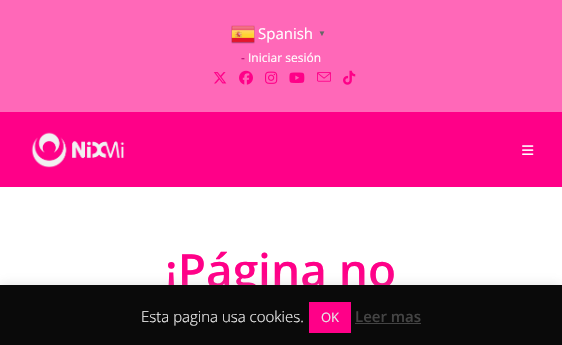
#include "include/core/SkBlurTypes.h"
#include "include/core/SkCanvas.h"
#include "include/core/SkData.h"
#include "include/core/SkFont.h"
#include "include/core/SkFontMgr.h"
#include "include/core/SkImage.h"
#include "include/core/SkMaskFilter.h"
#include "include/core/SkPaint.h"
#include "include/core/SkPathBuilder.h"
#include "include/core/SkTextBlob.h"
#include "include/effects/SkDashPathEffect.h"
#include "include/effects/SkGradientShader.h"
#include "include/utils/SkParsePath.h"

extern sk_sp<SkFontMgr> fontMgr;

static SkFont font(const char* family, int weight, float size, bool italic = false) {
    SkFontStyle style(weight, SkFontStyle::kNormal_Width,
        italic ? SkFontStyle::kItalic_Slant : SkFontStyle::kUpright_Slant);
    SkFont result(fontMgr->matchFamilyStyle(family, style), size);
    result.setSubpixel(true);
    return result;
}

static void drawLabel(SkCanvas* canvas, const char* s, float x, float y, const SkFont& font, SkColor color) {
    SkPaint ink(SkColor4f::FromColor(color));
    ink.setAntiAlias(true);
    canvas->drawString(s, x, y, font, ink);
}

static void fillRect(SkCanvas* canvas, float x, float y, float w, float h, SkColor color) {
    SkPaint ink(SkColor4f::FromColor(color));
    ink.setAntiAlias(true);
    canvas->drawRect(SkRect::MakeXYWH(x, y, w, h), ink);
}

static void drawPhoto(SkCanvas* canvas, const char* path, float x, float y, float w, float h) {
    auto image = SkImages::DeferredFromEncodedData(SkData::MakeFromFileName(path));
    canvas->drawImageRect(image, SkRect::MakeXYWH(x, y, w, h), SkSamplingOptions());
}

void draw(SkCanvas* canvas) {
    SkPaint paint;
    paint.setAntiAlias(true);
    canvas->clear(0xFFFFFFFF);
    fillRect(canvas, 0, 0, 562, 112, 0xFFFF68B8);
    fillRect(canvas, 0, 112, 562, 75, 0xFFFF0088);
    drawPhoto(canvas, "assets/img1.png", 231, 25, 24, 19);
    SkFont font1 = font("Open Sans", 400, 15);
    drawLabel(canvas, "Spanish", 258, 39, font1, 0xFFFFFFFF);
    SkFont font2 = font("Liberation Sans", 700, 8);
    drawLabel(canvas, "▼", 318, 36, font2, 0xFF666666);
    SkFont font3 = font("Open Sans", 400, 12);
    drawLabel(canvas, "-", 241, 62, font3, 0xFFAD0068);
    drawLabel(canvas, "Iniciar sesión", 248, 62, font3, 0xFFFFFFFF);
    drawPhoto(canvas, "assets/img2.png", 213, 72, 14, 12);
    drawPhoto(canvas, "assets/img3.png", 239, 70, 14, 15);
    drawPhoto(canvas, "assets/img4.png", 265, 71, 13, 13);
    drawPhoto(canvas, "assets/img5.png", 289, 72, 16, 11);
    drawPhoto(canvas, "assets/img6.png", 317, 72, 14, 10);
    drawPhoto(canvas, "assets/img7.png", 343, 70, 13, 15);
    drawPhoto(canvas, "assets/img8.png", 31, 132, 94, 36);
    drawPhoto(canvas, "assets/img9.png", 522, 145, 12, 10);
    SkFont font4 = font("Open Sans", 600, 46);
    drawLabel(canvas, "¡Página no", 165, 287, font4, 0xFFFF0088);
    paint.setColor(0x4DACABAB);
    paint.setMaskFilter(SkMaskFilter::MakeBlur(kNormal_SkBlurStyle, 5));
    canvas->drawRect(SkRect::MakeXYWH(0, 284, 562, 60), paint);
    paint.setMaskFilter(nullptr);
    fillRect(canvas, 0, 285, 562, 60, 0xFF0A0A0A);
    SkFont font5 = font("Open Sans", 300, 15);
    drawLabel(canvas, "Esta pagina usa cookies.", 141, 322, font5, 0xFFF2F2F2);
    fillRect(canvas, 309, 302, 42, 31, 0xFFFF0088);
    SkFont font6 = font("Open Sans", 400, 13);
    drawLabel(canvas, "OK", 321, 322, font6, 0xFFE8E8E8);
    SkFont font7 = font("Open Sans", 600, 15);
    drawLabel(canvas, "Leer mas", 355, 322, font7, 0xFF444444);
    fillRect(canvas, 355, 323, 66, 1, 0xFF444444);
}
